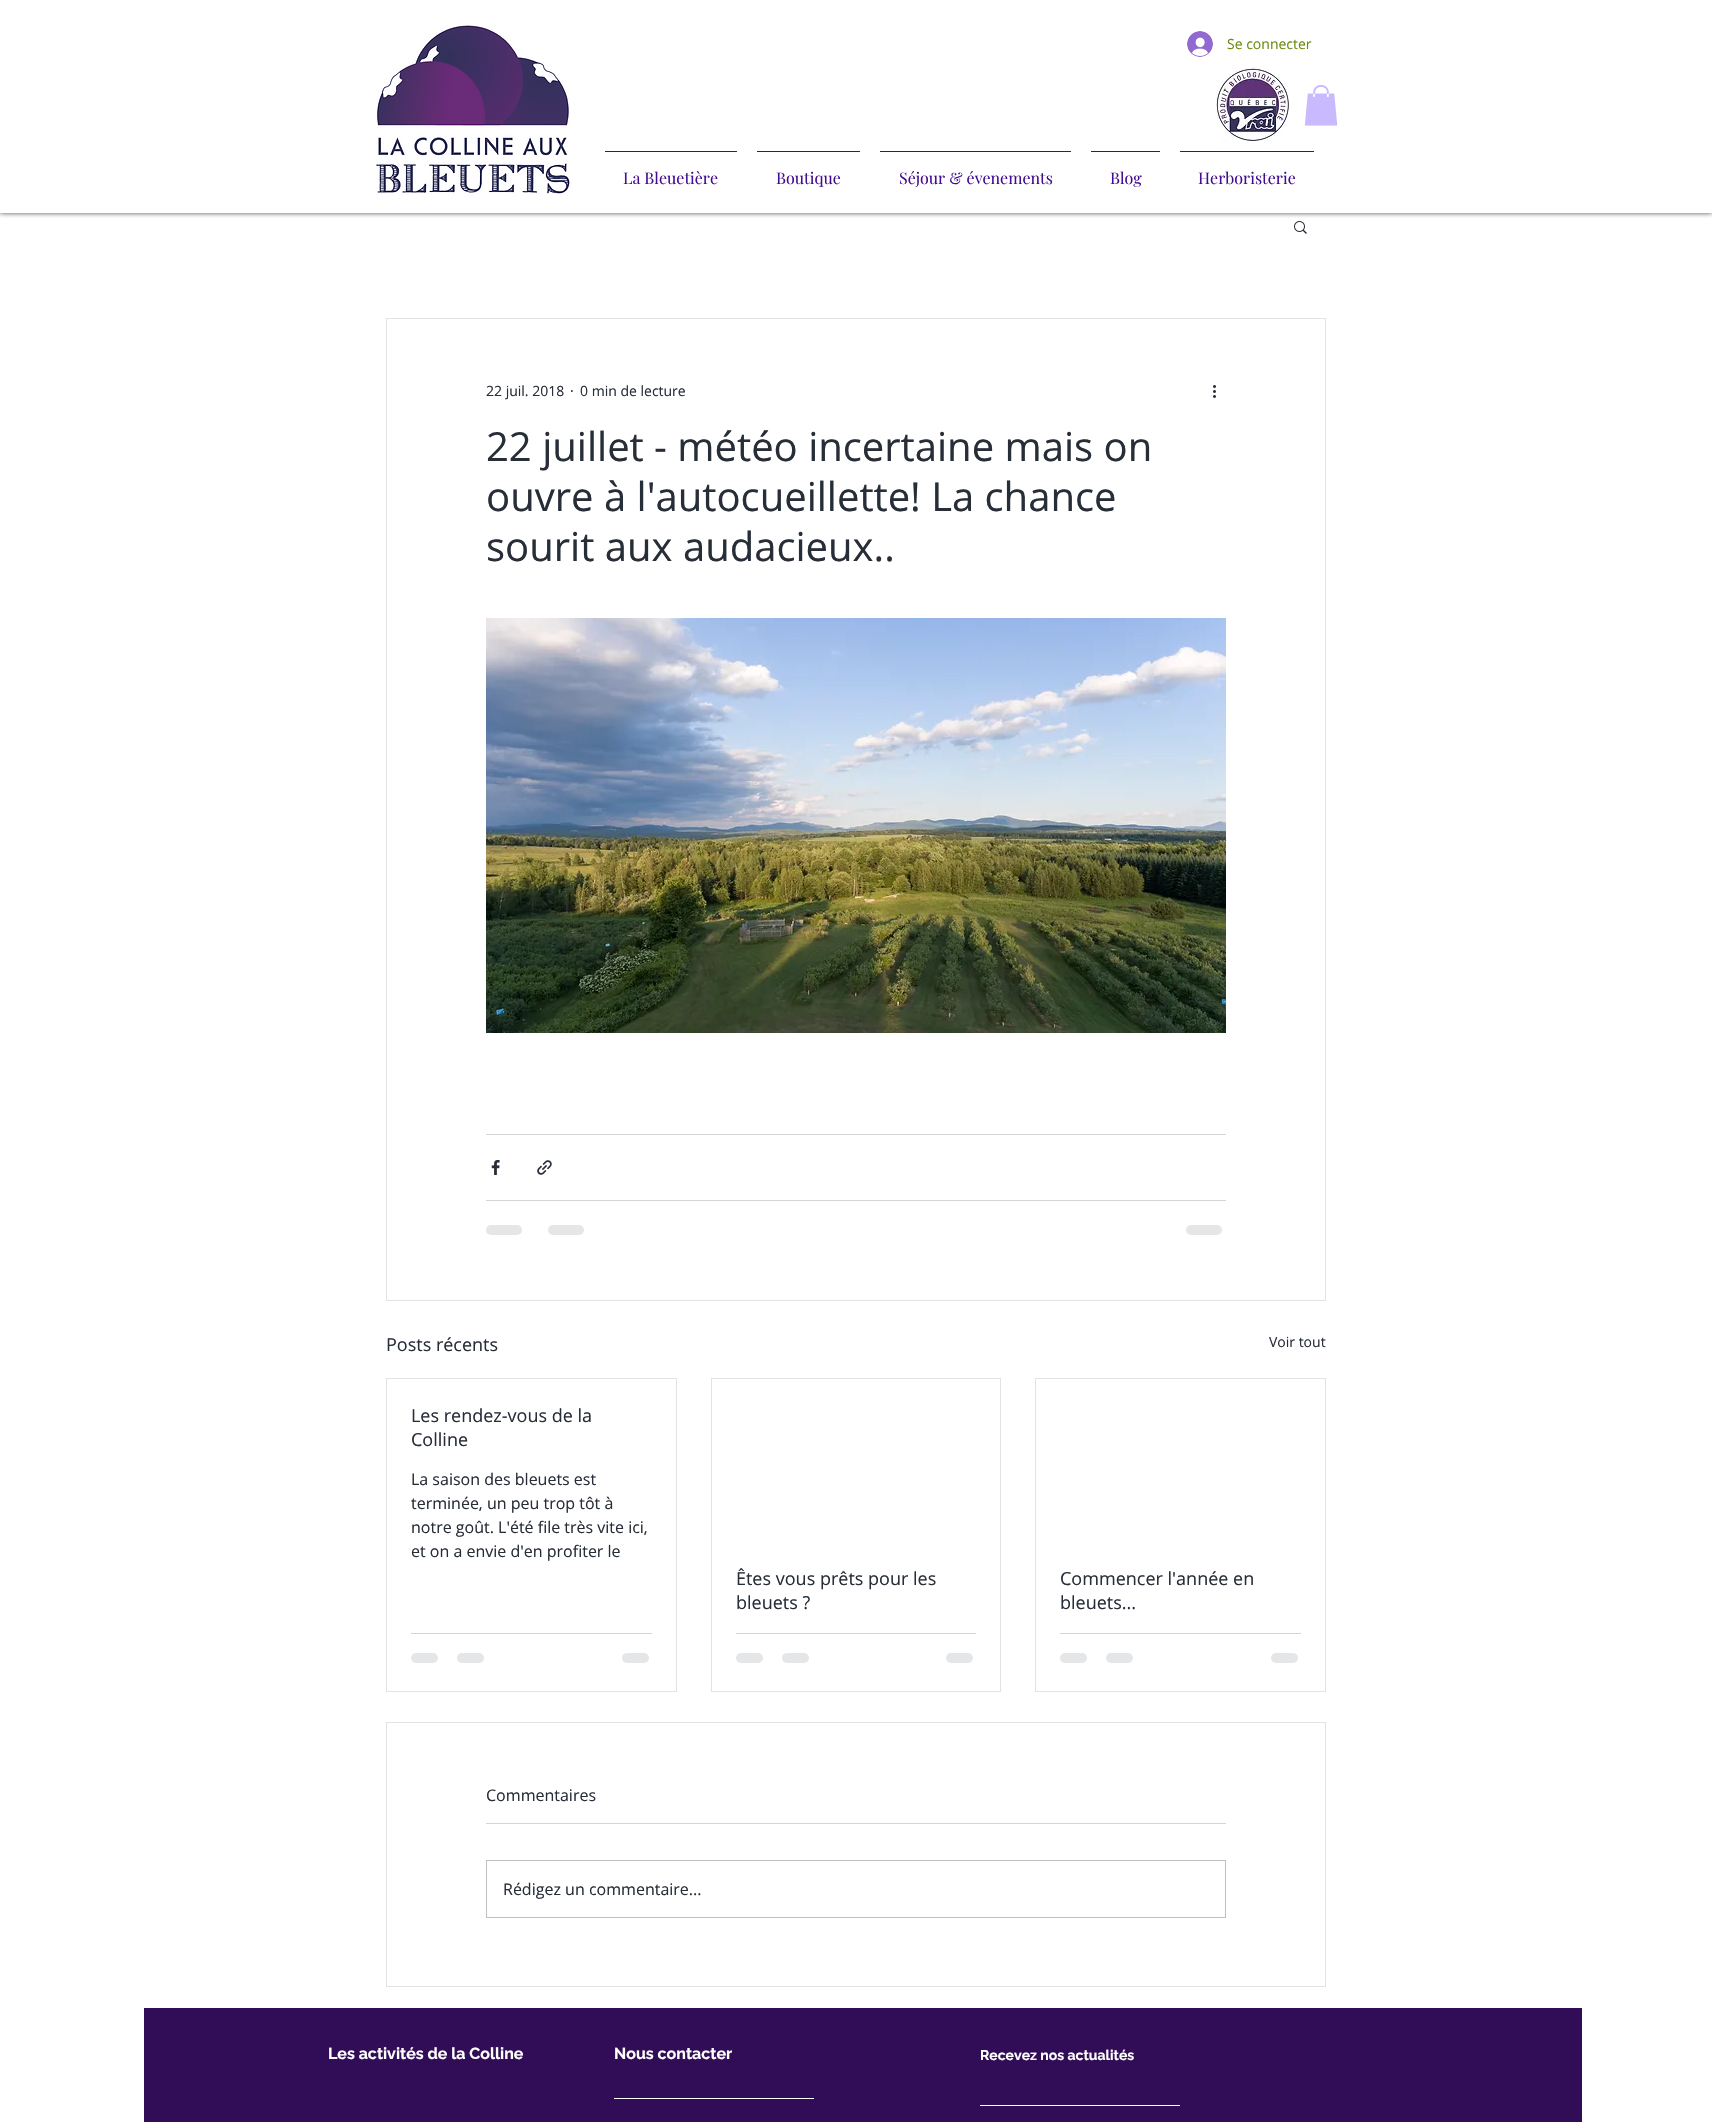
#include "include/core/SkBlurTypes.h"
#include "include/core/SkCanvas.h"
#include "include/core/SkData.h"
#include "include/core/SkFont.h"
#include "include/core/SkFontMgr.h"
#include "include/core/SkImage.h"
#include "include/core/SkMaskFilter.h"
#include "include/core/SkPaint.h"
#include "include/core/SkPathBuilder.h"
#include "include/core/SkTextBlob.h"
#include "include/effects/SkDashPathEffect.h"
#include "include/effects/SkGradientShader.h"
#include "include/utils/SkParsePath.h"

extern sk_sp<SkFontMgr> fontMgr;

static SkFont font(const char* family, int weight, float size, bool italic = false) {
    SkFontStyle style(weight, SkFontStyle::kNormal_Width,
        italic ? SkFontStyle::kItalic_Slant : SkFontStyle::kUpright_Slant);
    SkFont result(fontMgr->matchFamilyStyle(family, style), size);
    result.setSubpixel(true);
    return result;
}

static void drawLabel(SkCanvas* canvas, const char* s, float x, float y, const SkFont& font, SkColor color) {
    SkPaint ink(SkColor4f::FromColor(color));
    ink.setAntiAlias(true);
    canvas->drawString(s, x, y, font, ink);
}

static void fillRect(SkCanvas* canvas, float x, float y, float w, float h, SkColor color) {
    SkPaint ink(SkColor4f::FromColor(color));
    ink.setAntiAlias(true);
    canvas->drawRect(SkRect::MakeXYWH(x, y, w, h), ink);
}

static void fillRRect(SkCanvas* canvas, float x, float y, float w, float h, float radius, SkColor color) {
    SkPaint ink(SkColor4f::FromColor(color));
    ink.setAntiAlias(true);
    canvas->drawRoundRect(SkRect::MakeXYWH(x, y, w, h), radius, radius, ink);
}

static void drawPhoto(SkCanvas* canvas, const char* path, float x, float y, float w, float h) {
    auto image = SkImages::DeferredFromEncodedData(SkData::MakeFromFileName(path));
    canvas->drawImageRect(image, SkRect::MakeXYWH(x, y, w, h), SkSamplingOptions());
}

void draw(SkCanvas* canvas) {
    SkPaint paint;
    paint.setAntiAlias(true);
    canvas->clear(0xFFFFFFFF);
    canvas->save();
    canvas->clipRect(SkRect::MakeXYWH(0, 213, 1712, 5));
    paint.setColor(0xB3000000);
    paint.setMaskFilter(SkMaskFilter::MakeBlur(kNormal_SkBlurStyle, 2.5f));
    canvas->drawRect(SkRect::MakeXYWH(0, 0, 1712, 213), paint);
    paint.setMaskFilter(nullptr);
    canvas->restore();
    drawPhoto(canvas, "assets/img1.png", 376, 25, 194, 169);
    drawPhoto(canvas, "assets/img2.png", 1187, 31, 26, 26);
    SkFont font1 = font("Open Sans", 400, 14);
    drawLabel(canvas, "Se connecter", 1227, 49, font1, 0xFF6C8C10);
    drawPhoto(canvas, "assets/img3.png", 1216, 65, 73, 80);
    drawPhoto(canvas, "assets/img4.png", 1304, 85, 34, 41);
    fillRect(canvas, 605, 151, 132, 1, 0xFF420C91);
    SkFont font2 = font("Playfair Display", 400, 16);
    drawLabel(canvas, "La Bleuetière", 623, 184, font2, 0xFF420C91);
    fillRect(canvas, 757, 151, 103, 1, 0xFF420C91);
    drawLabel(canvas, "Boutique", 776, 184, font2, 0xFF420C91);
    fillRect(canvas, 880, 151, 191, 1, 0xFF420C91);
    drawLabel(canvas, "Séjour & évenements", 899, 184, font2, 0xFF420C91);
    fillRect(canvas, 1091, 151, 69, 1, 0xFF420C91);
    drawLabel(canvas, "Blog", 1110, 184, font2, 0xFF420C91);
    fillRect(canvas, 1180, 151, 134, 1, 0xFF420C91);
    drawLabel(canvas, "Herboristerie", 1198, 184, font2, 0xFF420C91);
    drawPhoto(canvas, "assets/img5.png", 1294, 221, 13, 13);
    paint.setStroke(true);
    paint.setStrokeWidth(1);
    paint.setColor(0xFFE4E2E2);
    canvas->drawRect(SkRect::MakeXYWH(386.5f, 318.5f, 939, 982), paint);
    drawLabel(canvas, "22 juil. 2018", 486, 396, font1, 0xFF272E38);
    drawLabel(canvas, "·", 570, 396, font1, 0xFF272E38);
    drawLabel(canvas, "0 min de lecture", 580, 396, font1, 0xFF272E38);
    drawPhoto(canvas, "assets/img6.png", 1213, 385, 3, 13);
    SkFont font3 = font("Open Sans", 400, 40);
    drawLabel(canvas, "22 juillet - météo incertaine mais on", 486, 461, font3, 0xFF272E38);
    drawLabel(canvas, "ouvre à l'autocueillette! La chance", 486, 511, font3, 0xFF272E38);
    drawLabel(canvas, "sourit aux audacieux..", 486, 561, font3, 0xFF272E38);
    drawPhoto(canvas, "assets/img7.png", 486, 618, 740, 415);
    fillRect(canvas, 486, 1134, 740, 1, 0xFFD4D5D7);
    drawPhoto(canvas, "assets/img8.png", 491, 1160, 9, 15);
    drawPhoto(canvas, "assets/img9.png", 537, 1160, 15, 15);
    fillRect(canvas, 486, 1200, 740, 1, 0xFFD4D5D7);
    fillRRect(canvas, 486, 1225, 36, 10, 5, 0xFFE5E6E7);
    fillRRect(canvas, 548, 1225, 36, 10, 5, 0xFFE5E6E7);
    fillRRect(canvas, 1186, 1225, 36, 10, 5, 0xFFE5E6E7);
    SkFont font4 = font("Open Sans", 400, 18);
    drawLabel(canvas, "Posts récents", 386, 1351, font4, 0xFF272E38);
    drawLabel(canvas, "Voir tout", 1269, 1347, font1, 0xFF272E38);
    canvas->drawRect(SkRect::MakeXYWH(386.5f, 1378.5f, 290, 313), paint);
    drawLabel(canvas, "Les rendez-vous de la", 411, 1422, font4, 0xFF272E38);
    drawLabel(canvas, "Colline", 411, 1446, font4, 0xFF272E38);
    SkFont font5 = font("Open Sans", 400, 16);
    drawLabel(canvas, "La saison des bleuets est", 411, 1485, font5, 0xFF272E38);
    drawLabel(canvas, "terminée, un peu trop tôt à", 411, 1509, font5, 0xFF272E38);
    drawLabel(canvas, "notre goût. L'été file très vite ici,", 411, 1533, font5, 0xFF272E38);
    drawLabel(canvas, "et on a envie d'en profiter le", 411, 1557, font5, 0xFF272E38);
    fillRect(canvas, 411, 1633, 241, 1, 0xFFD4D5D7);
    fillRRect(canvas, 411, 1653, 27, 10, 5, 0xFFE5E6E7);
    fillRRect(canvas, 457, 1653, 27, 10, 5, 0xFFE5E6E7);
    fillRRect(canvas, 622, 1653, 27, 10, 5, 0xFFE5E6E7);
    canvas->drawRect(SkRect::MakeXYWH(711.5f, 1378.5f, 289, 313), paint);
    drawLabel(canvas, "Êtes vous prêts pour les", 736, 1585, font4, 0xFF272E38);
    drawLabel(canvas, "bleuets ?", 736, 1609, font4, 0xFF272E38);
    fillRect(canvas, 736, 1633, 240, 1, 0xFFD4D5D7);
    fillRRect(canvas, 736, 1653, 27, 10, 5, 0xFFE5E6E7);
    fillRRect(canvas, 782, 1653, 27, 10, 5, 0xFFE5E6E7);
    fillRRect(canvas, 946, 1653, 27, 10, 5, 0xFFE5E6E7);
    canvas->drawRect(SkRect::MakeXYWH(1035.5f, 1378.5f, 290, 313), paint);
    drawLabel(canvas, "Commencer l'année en", 1060, 1585, font4, 0xFF272E38);
    drawLabel(canvas, "bleuets...", 1060, 1609, font4, 0xFF272E38);
    fillRect(canvas, 1060, 1633, 241, 1, 0xFFD4D5D7);
    fillRRect(canvas, 1060, 1653, 27, 10, 5, 0xFFE5E6E7);
    fillRRect(canvas, 1106, 1653, 27, 10, 5, 0xFFE5E6E7);
    fillRRect(canvas, 1271, 1653, 27, 10, 5, 0xFFE5E6E7);
    canvas->drawRect(SkRect::MakeXYWH(386.5f, 1722.5f, 939, 264), paint);
    drawLabel(canvas, "Commentaires", 486, 1801, font5, 0xFF272E38);
    fillRect(canvas, 486, 1823, 740, 1, 0xFFD4D5D7);
    paint.setColor(0xFFBEC0C3);
    canvas->drawRect(SkRect::MakeXYWH(486.5f, 1860.5f, 739, 57), paint);
    drawLabel(canvas, "Rédigez un commentaire...", 503, 1895, font5, 0xFF272E38);
    fillRect(canvas, 144, 2008, 1438, 114, 0xFF320D57);
    SkFont font6 = font("Raleway", 700, 16);
    drawLabel(canvas, "Les activités de la Colline", 328, 2059, font6, 0xFFFFFFFE);
    drawLabel(canvas, "Nous contacter", 614, 2059, font6, 0xFFFFFFFE);
    fillRect(canvas, 614, 2098, 200, 1, 0xFFFFFFFF);
    SkFont font7 = font("Raleway", 700, 14);
    drawLabel(canvas, "Recevez nos actualités", 980, 2060, font7, 0xFFFFFFFE);
    fillRect(canvas, 980, 2105, 200, 1, 0xFFFFFFFF);
}
